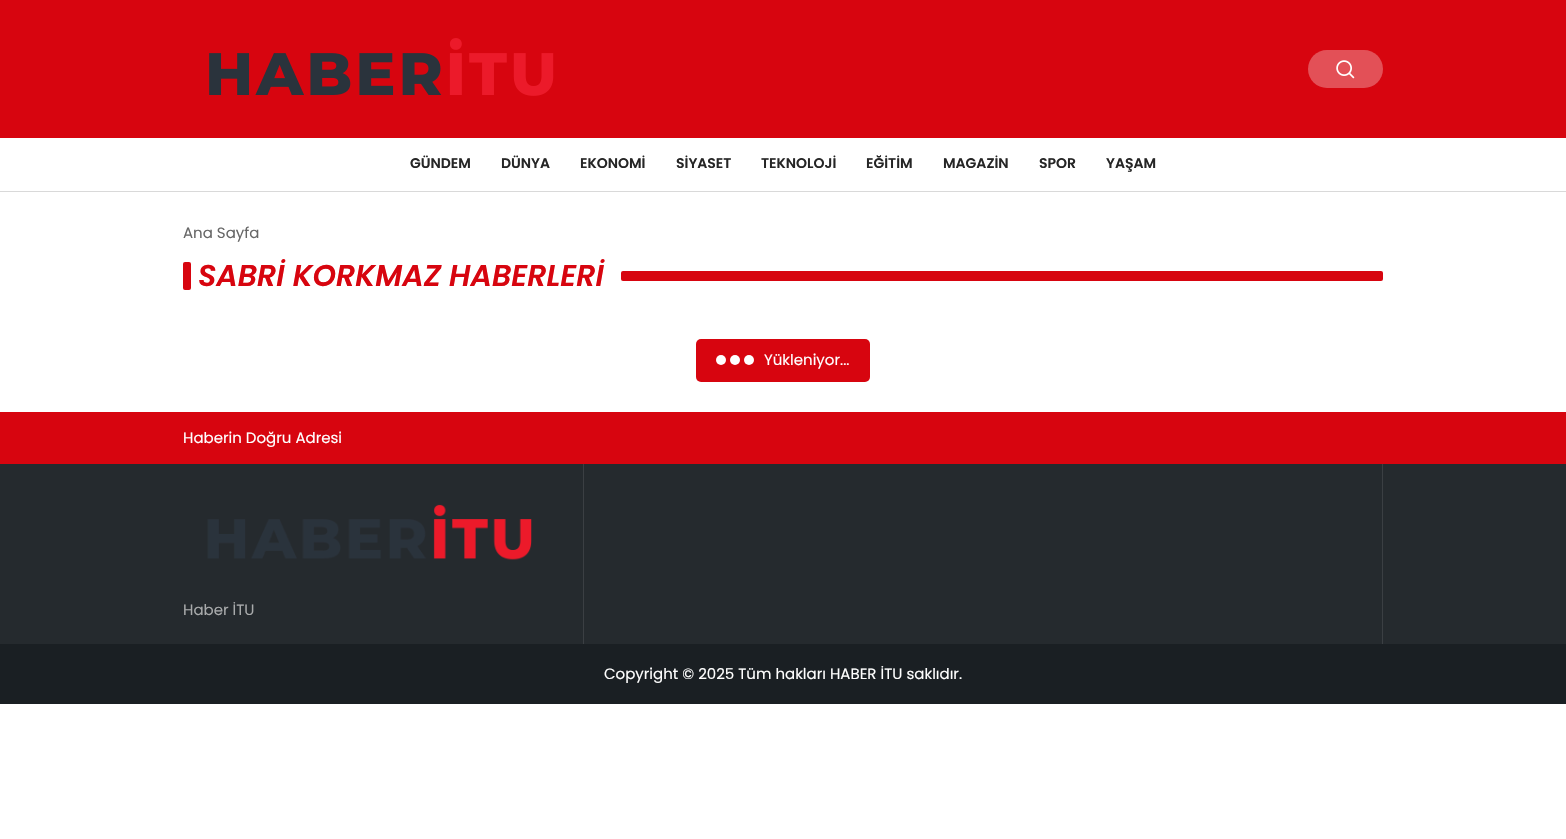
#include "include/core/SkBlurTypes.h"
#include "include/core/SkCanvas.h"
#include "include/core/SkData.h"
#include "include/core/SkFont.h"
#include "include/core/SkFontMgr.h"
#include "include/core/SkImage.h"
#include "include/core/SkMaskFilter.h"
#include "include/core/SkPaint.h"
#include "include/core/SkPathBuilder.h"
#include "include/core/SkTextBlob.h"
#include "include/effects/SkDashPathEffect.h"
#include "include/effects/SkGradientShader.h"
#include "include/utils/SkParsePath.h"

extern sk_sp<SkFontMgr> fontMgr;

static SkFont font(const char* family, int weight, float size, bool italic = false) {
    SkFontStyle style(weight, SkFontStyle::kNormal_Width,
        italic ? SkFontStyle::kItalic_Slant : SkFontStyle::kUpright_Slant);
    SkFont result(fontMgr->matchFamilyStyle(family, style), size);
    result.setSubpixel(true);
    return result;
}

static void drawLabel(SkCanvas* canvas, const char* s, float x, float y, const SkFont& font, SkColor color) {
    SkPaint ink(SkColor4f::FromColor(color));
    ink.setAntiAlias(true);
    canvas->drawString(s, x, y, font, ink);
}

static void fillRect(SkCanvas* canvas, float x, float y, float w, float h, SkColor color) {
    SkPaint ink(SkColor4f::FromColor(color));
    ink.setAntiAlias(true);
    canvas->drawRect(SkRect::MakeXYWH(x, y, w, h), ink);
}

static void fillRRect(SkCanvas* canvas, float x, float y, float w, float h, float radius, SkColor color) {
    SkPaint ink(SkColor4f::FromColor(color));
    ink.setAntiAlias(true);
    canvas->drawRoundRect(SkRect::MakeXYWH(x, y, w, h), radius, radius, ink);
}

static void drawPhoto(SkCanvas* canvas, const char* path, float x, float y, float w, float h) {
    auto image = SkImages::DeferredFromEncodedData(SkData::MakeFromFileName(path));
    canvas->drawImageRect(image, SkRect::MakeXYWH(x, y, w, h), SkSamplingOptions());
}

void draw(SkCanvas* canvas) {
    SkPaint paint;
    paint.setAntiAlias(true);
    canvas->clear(0xFFFFFFFF);
    fillRect(canvas, 0, 0, 1566, 138, 0xFFD7050F);
    drawPhoto(canvas, "assets/img1.png", 209, 38, 345, 58);
    fillRRect(canvas, 1308, 50, 75, 38, 19, 0xFFE35057);
    drawPhoto(canvas, "assets/img2.png", 1336, 60, 19, 19);
    fillRect(canvas, 0, 191, 1566, 1, 0xFFD9D9D9);
    SkFont font1 = font("Poppins", 600, 14);
    drawLabel(canvas, "GÜNDEM", 410, 168, font1, 0xFF262626);
    drawLabel(canvas, "DÜNYA", 501, 168, font1, 0xFF262626);
    drawLabel(canvas, "EKONOMİ", 580, 168, font1, 0xFF262626);
    drawLabel(canvas, "SİYASET", 676, 168, font1, 0xFF262626);
    drawLabel(canvas, "TEKNOLOJİ", 761, 168, font1, 0xFF262626);
    drawLabel(canvas, "EĞİTİM", 866, 168, font1, 0xFF262626);
    drawLabel(canvas, "MAGAZİN", 943, 168, font1, 0xFF262626);
    drawLabel(canvas, "SPOR", 1039, 168, font1, 0xFF262626);
    drawLabel(canvas, "YAŞAM", 1106, 168, font1, 0xFF262626);
    SkFont font2 = font("Poppins", 400, 15);
    drawLabel(canvas, "Ana Sayfa", 183, 238, font2, 0xFF676767);
    fillRRect(canvas, 183, 262, 8, 28, 2, 0xFFD7050F);
    SkFont font3 = font("Poppins", 600, 30, true);
    drawLabel(canvas, "SABRİ KORKMAZ HABERLERİ", 198, 286, font3, 0xFFD7050F);
    fillRRect(canvas, 621, 271, 762, 10, 2, 0xFFD7050F);
    fillRRect(canvas, 696, 339, 174, 43, 5, 0xFFD7050F);
    paint.setColor(0xFFFFFFFF);
    canvas->drawCircle(721, 360, 5, paint);
    canvas->drawCircle(735, 360, 5, paint);
    canvas->drawCircle(749, 360, 5, paint);
    drawLabel(canvas, "Yükleniyor...", 764, 365, font2, 0xFFFFFFFF);
    fillRect(canvas, 0, 412, 1566, 52, 0xFFD7050F);
    drawLabel(canvas, "Haberin Doğru Adresi", 183, 443, font2, 0xFFFFFFFF);
    fillRect(canvas, 0, 464, 1566, 180, 0xFF252A2E);
    drawPhoto(canvas, "assets/img3.png", 207, 504, 325, 56);
    drawLabel(canvas, "Haber İTU", 183, 615, font2, 0xFFA8AAAB);
    fillRect(canvas, 1382, 464, 1, 180, 0xFF3B3F43);
    fillRect(canvas, 583, 464, 1, 180, 0xFF3B3F43);
    fillRect(canvas, 0, 644, 1566, 60, 0xFF1A1F23);
    drawLabel(canvas, "Copyright © 2025 Tüm hakları HABER İTU saklıdır.", 604, 679, font2, 0xFFFFFFFF);
}
